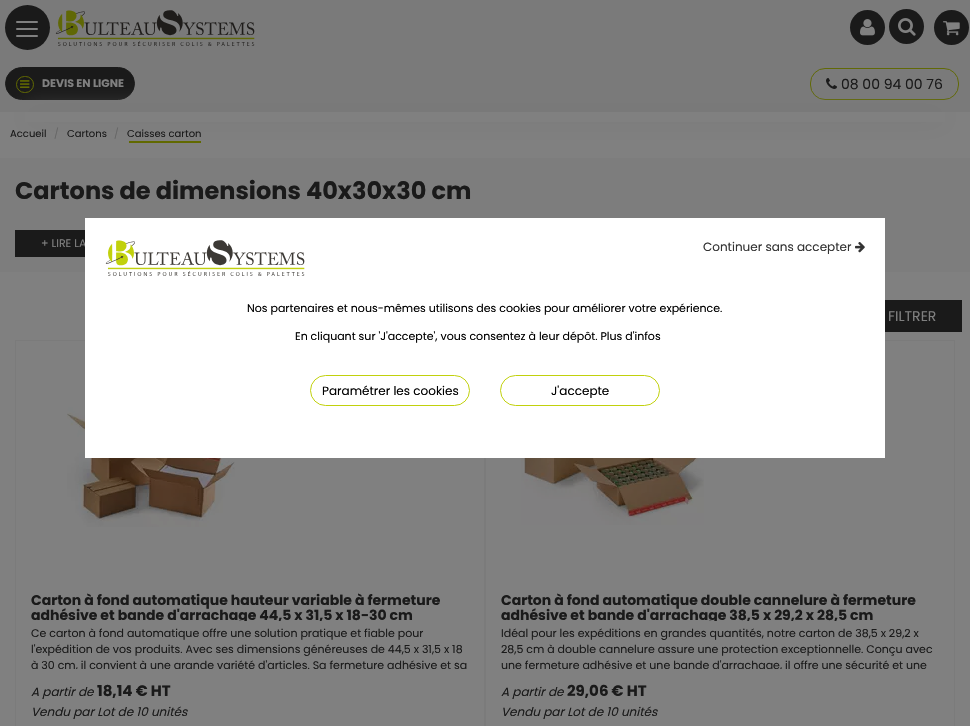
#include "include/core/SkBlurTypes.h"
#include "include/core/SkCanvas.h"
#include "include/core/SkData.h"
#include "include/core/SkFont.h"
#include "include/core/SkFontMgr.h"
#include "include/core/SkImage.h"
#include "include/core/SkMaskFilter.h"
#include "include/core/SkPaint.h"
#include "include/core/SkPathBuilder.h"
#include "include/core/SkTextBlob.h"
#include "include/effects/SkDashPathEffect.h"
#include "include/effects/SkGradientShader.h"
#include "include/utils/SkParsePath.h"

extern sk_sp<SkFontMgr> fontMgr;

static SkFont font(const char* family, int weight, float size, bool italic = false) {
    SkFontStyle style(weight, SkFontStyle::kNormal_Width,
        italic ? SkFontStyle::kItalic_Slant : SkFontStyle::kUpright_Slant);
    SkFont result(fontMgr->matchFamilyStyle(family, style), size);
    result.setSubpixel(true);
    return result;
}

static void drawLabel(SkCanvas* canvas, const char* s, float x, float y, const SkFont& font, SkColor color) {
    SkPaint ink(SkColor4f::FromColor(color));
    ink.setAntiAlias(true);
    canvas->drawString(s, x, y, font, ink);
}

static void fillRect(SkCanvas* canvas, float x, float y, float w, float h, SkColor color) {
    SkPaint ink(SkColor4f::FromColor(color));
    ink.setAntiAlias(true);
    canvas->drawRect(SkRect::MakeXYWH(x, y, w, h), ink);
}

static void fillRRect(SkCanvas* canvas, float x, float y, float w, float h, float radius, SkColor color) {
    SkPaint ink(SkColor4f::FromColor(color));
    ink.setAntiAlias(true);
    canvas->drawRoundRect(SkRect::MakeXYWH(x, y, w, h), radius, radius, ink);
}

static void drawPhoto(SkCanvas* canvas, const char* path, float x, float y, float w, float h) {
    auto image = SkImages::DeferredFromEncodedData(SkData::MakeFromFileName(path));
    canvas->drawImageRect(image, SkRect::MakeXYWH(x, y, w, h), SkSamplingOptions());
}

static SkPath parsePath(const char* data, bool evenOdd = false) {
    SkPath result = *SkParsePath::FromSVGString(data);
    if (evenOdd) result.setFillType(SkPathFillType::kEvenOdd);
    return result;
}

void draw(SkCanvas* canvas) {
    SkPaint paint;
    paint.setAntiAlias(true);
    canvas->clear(0xFF808080);
    fillRect(canvas, 0, 0, 970, 112, 0xFF7A7A7A);
    paint.setColor(0xFF1A1A1A);
    canvas->drawRoundRect(SkRect::MakeXYWH(5.5f, 67.5f, 129, 32), 16, 16, paint);
    paint.setStroke(true);
    paint.setStrokeWidth(1);
    canvas->drawRoundRect(SkRect::MakeXYWH(5.5f, 67.5f, 129, 32), 16, 16, paint);
    paint.setColor(0xFF616900);
    canvas->drawRoundRect(SkRect::MakeXYWH(16.5f, 76.5f, 17, 16), 8, 8, paint);
    drawPhoto(canvas, "assets/img5.png", 20, 80, 10, 8);
    paint.setColor(0xFF616906);
    canvas->drawRoundRect(SkRect::MakeXYWH(810.5f, 68.5f, 148, 31), 14.5f, 14.5f, paint);
    drawPhoto(canvas, "assets/img6.png", 826, 78, 11, 11);
    fillRect(canvas, 0, 158, 970, 114, 0xFF7D7D7D);
    canvas->save();
    canvas->clipPath(parsePath("M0 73H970V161H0ZM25 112H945V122H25Z", true), true);
    paint.setStroke(false);
    paint.setColor(0xFF777777);
    paint.setMaskFilter(SkMaskFilter::MakeBlur(kNormal_SkBlurStyle, 12.5f));
    canvas->drawRect(SkRect::MakeXYWH(25, 112, 920, 10), paint);
    paint.setMaskFilter(nullptr);
    canvas->restore();
    paint.setColor(0xFF1A1A1A);
    canvas->drawCircle(27.5f, 27.5f, 22.5f, paint);
    fillRRect(canvas, 16, 21, 22, 2, 1, 0xFF808080);
    fillRRect(canvas, 16, 28, 22, 2, 1, 0xFF808080);
    fillRRect(canvas, 16, 35, 22, 2, 1, 0xFF808080);
    drawPhoto(canvas, "assets/img1.png", 55, 10, 200, 36);
    canvas->drawCircle(867.5f, 27.5f, 17.5f, paint);
    drawPhoto(canvas, "assets/img2.png", 860, 19, 15, 17);
    canvas->drawCircle(906.5f, 26.5f, 17.5f, paint);
    drawPhoto(canvas, "assets/img3.png", 898, 18, 18, 18);
    canvas->drawCircle(951.5f, 27.5f, 17.5f, paint);
    drawPhoto(canvas, "assets/img4.png", 943, 21, 17, 15);
    SkFont font1 = font("Poppins", 700, 11);
    drawLabel(canvas, "DEVIS EN LIGNE", 42, 87, font1, 0xFF808080);
    SkFont font2 = font("Poppins", 400, 14);
    drawLabel(canvas, "08 00 94 00 76", 841, 89, font2, 0xFF1A1A1A);
    SkFont font3 = font("Poppins", 400, 10);
    drawLabel(canvas, "Accueil", 10, 137, font3, 0xFF1A1A1A);
    drawLabel(canvas, "/", 54, 137, font3, 0xFF666666);
    drawLabel(canvas, "Cartons", 67, 137, font3, 0xFF1A1A1A);
    drawLabel(canvas, "/", 114, 137, font3, 0xFF666666);
    drawLabel(canvas, "Caisses carton", 127, 137, font3, 0xFF1A1A1A);
    fillRect(canvas, 129, 141, 72, 2, 0xFF616900);
    SkFont font4 = font("Poppins", 700, 24);
    drawLabel(canvas, "Cartons de dimensions 40x30x30 cm", 15, 199, font4, 0xFF1A1A1A);
    fillRect(canvas, 15, 230, 70, 27, 0xFF1A1A1A);
    SkFont font5 = font("Poppins", 400, 11);
    drawLabel(canvas, "+ LIRE LA", 41, 247, font5, 0xFF808080);
    fillRect(canvas, 885, 300, 77, 32, 0xFF1A1A1A);
    drawLabel(canvas, "FILTRER", 888, 321, font2, 0xFF808080);
    paint.setStroke(true);
    paint.setColor(0xFF7B7B7B);
    canvas->drawRect(SkRect::MakeXYWH(15.5f, 340.5f, 469, 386), paint);
    drawPhoto(canvas, "assets/img7.png", 67, 385, 168, 142);
    SkFont font6 = font("Poppins", 700, 14);
    drawLabel(canvas, "Carton à fond automatique hauteur variable à fermeture", 31, 605, font6, 0xFF1A1A1A);
    canvas->save();
    canvas->clipRect(SkRect::MakeXYWH(31, 583, 438, 38));
    drawLabel(canvas, "adhésive et bande d'arrachage 44,5 x 31,5 x 18-30 cm", 31, 620, font6, 0xFF1A1A1A);
    canvas->restore();
    drawLabel(canvas, "Ce carton à fond automatique offre une solution pratique et fiable pour", 31, 637, font5, 0xFF1A1A1A);
    drawLabel(canvas, "l'expédition de vos produits. Avec ses dimensions généreuses de 44,5 x 31,5 x 18", 31, 653, font5, 0xFF1A1A1A);
    canvas->save();
    canvas->clipRect(SkRect::MakeXYWH(31, 626, 438, 43));
    drawLabel(canvas, "à 30 cm, il convient à une grande variété d'articles. Sa fermeture adhésive et sa", 31, 669, font5, 0xFF1A1A1A);
    canvas->restore();
    SkFont font7 = font("Poppins", 400, 12, true);
    drawLabel(canvas, "A partir de", 31, 696, font7, 0xFF1A1A1A);
    SkFont font8 = font("Poppins", 700, 15);
    drawLabel(canvas, "18,14 € HT", 97, 696, font8, 0xFF1A1A1A);
    drawLabel(canvas, "Vendu par Lot de 10 unités", 31, 716, font7, 0xFF1A1A1A);
    canvas->drawRect(SkRect::MakeXYWH(485.5f, 340.5f, 469, 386), paint);
    drawPhoto(canvas, "assets/img8.png", 521, 458, 183, 67);
    drawLabel(canvas, "Carton à fond automatique double cannelure à fermeture", 501, 605, font6, 0xFF1A1A1A);
    canvas->save();
    canvas->clipRect(SkRect::MakeXYWH(501, 583, 438, 38));
    drawLabel(canvas, "adhésive et bande d'arrachage 38,5 x 29,2 x 28,5 cm", 501, 620, font6, 0xFF1A1A1A);
    canvas->restore();
    drawLabel(canvas, "Idéal pour les expéditions en grandes quantités, notre carton de 38,5 x 29,2 x", 501, 637, font5, 0xFF1A1A1A);
    drawLabel(canvas, "28,5 cm à double cannelure assure une protection exceptionnelle. Conçu avec", 501, 653, font5, 0xFF1A1A1A);
    canvas->save();
    canvas->clipRect(SkRect::MakeXYWH(501, 626, 438, 43));
    drawLabel(canvas, "une fermeture adhésive et une bande d'arrachage, il offre une sécurité et une", 501, 669, font5, 0xFF1A1A1A);
    canvas->restore();
    drawLabel(canvas, "A partir de", 501, 696, font7, 0xFF1A1A1A);
    drawLabel(canvas, "29,06 € HT", 567, 696, font8, 0xFF1A1A1A);
    drawLabel(canvas, "Vendu par Lot de 10 unités", 501, 716, font7, 0xFF1A1A1A);
    fillRect(canvas, 85, 218, 800, 240, 0xFFFFFFFF);
    drawPhoto(canvas, "assets/img9.png", 105, 240, 200, 36);
    SkFont font9 = font("Poppins", 400, 12);
    drawLabel(canvas, "Continuer sans accepter", 703, 251, font9, 0xFF333333);
    drawPhoto(canvas, "assets/img10.png", 855, 242, 10, 11);
    drawLabel(canvas, "Nos partenaires et nous-mêmes utilisons des cookies pour améliorer votre expérience.", 247, 312, font5, 0xFF000000);
    drawLabel(canvas, "En cliquant sur 'J'accepte', vous consentez à leur dépôt. Plus d'infos", 295, 340, font5, 0xFF000000);
    paint.setColor(0xFFC1D10C);
    canvas->drawRoundRect(SkRect::MakeXYWH(310.5f, 375.5f, 159, 30), 15, 15, paint);
    drawLabel(canvas, "Paramétrer les cookies", 322, 395, font9, 0xFF000000);
    canvas->drawRoundRect(SkRect::MakeXYWH(500.5f, 375.5f, 159, 30), 15, 15, paint);
    drawLabel(canvas, "J'accepte", 551, 395, font9, 0xFF000000);
}
